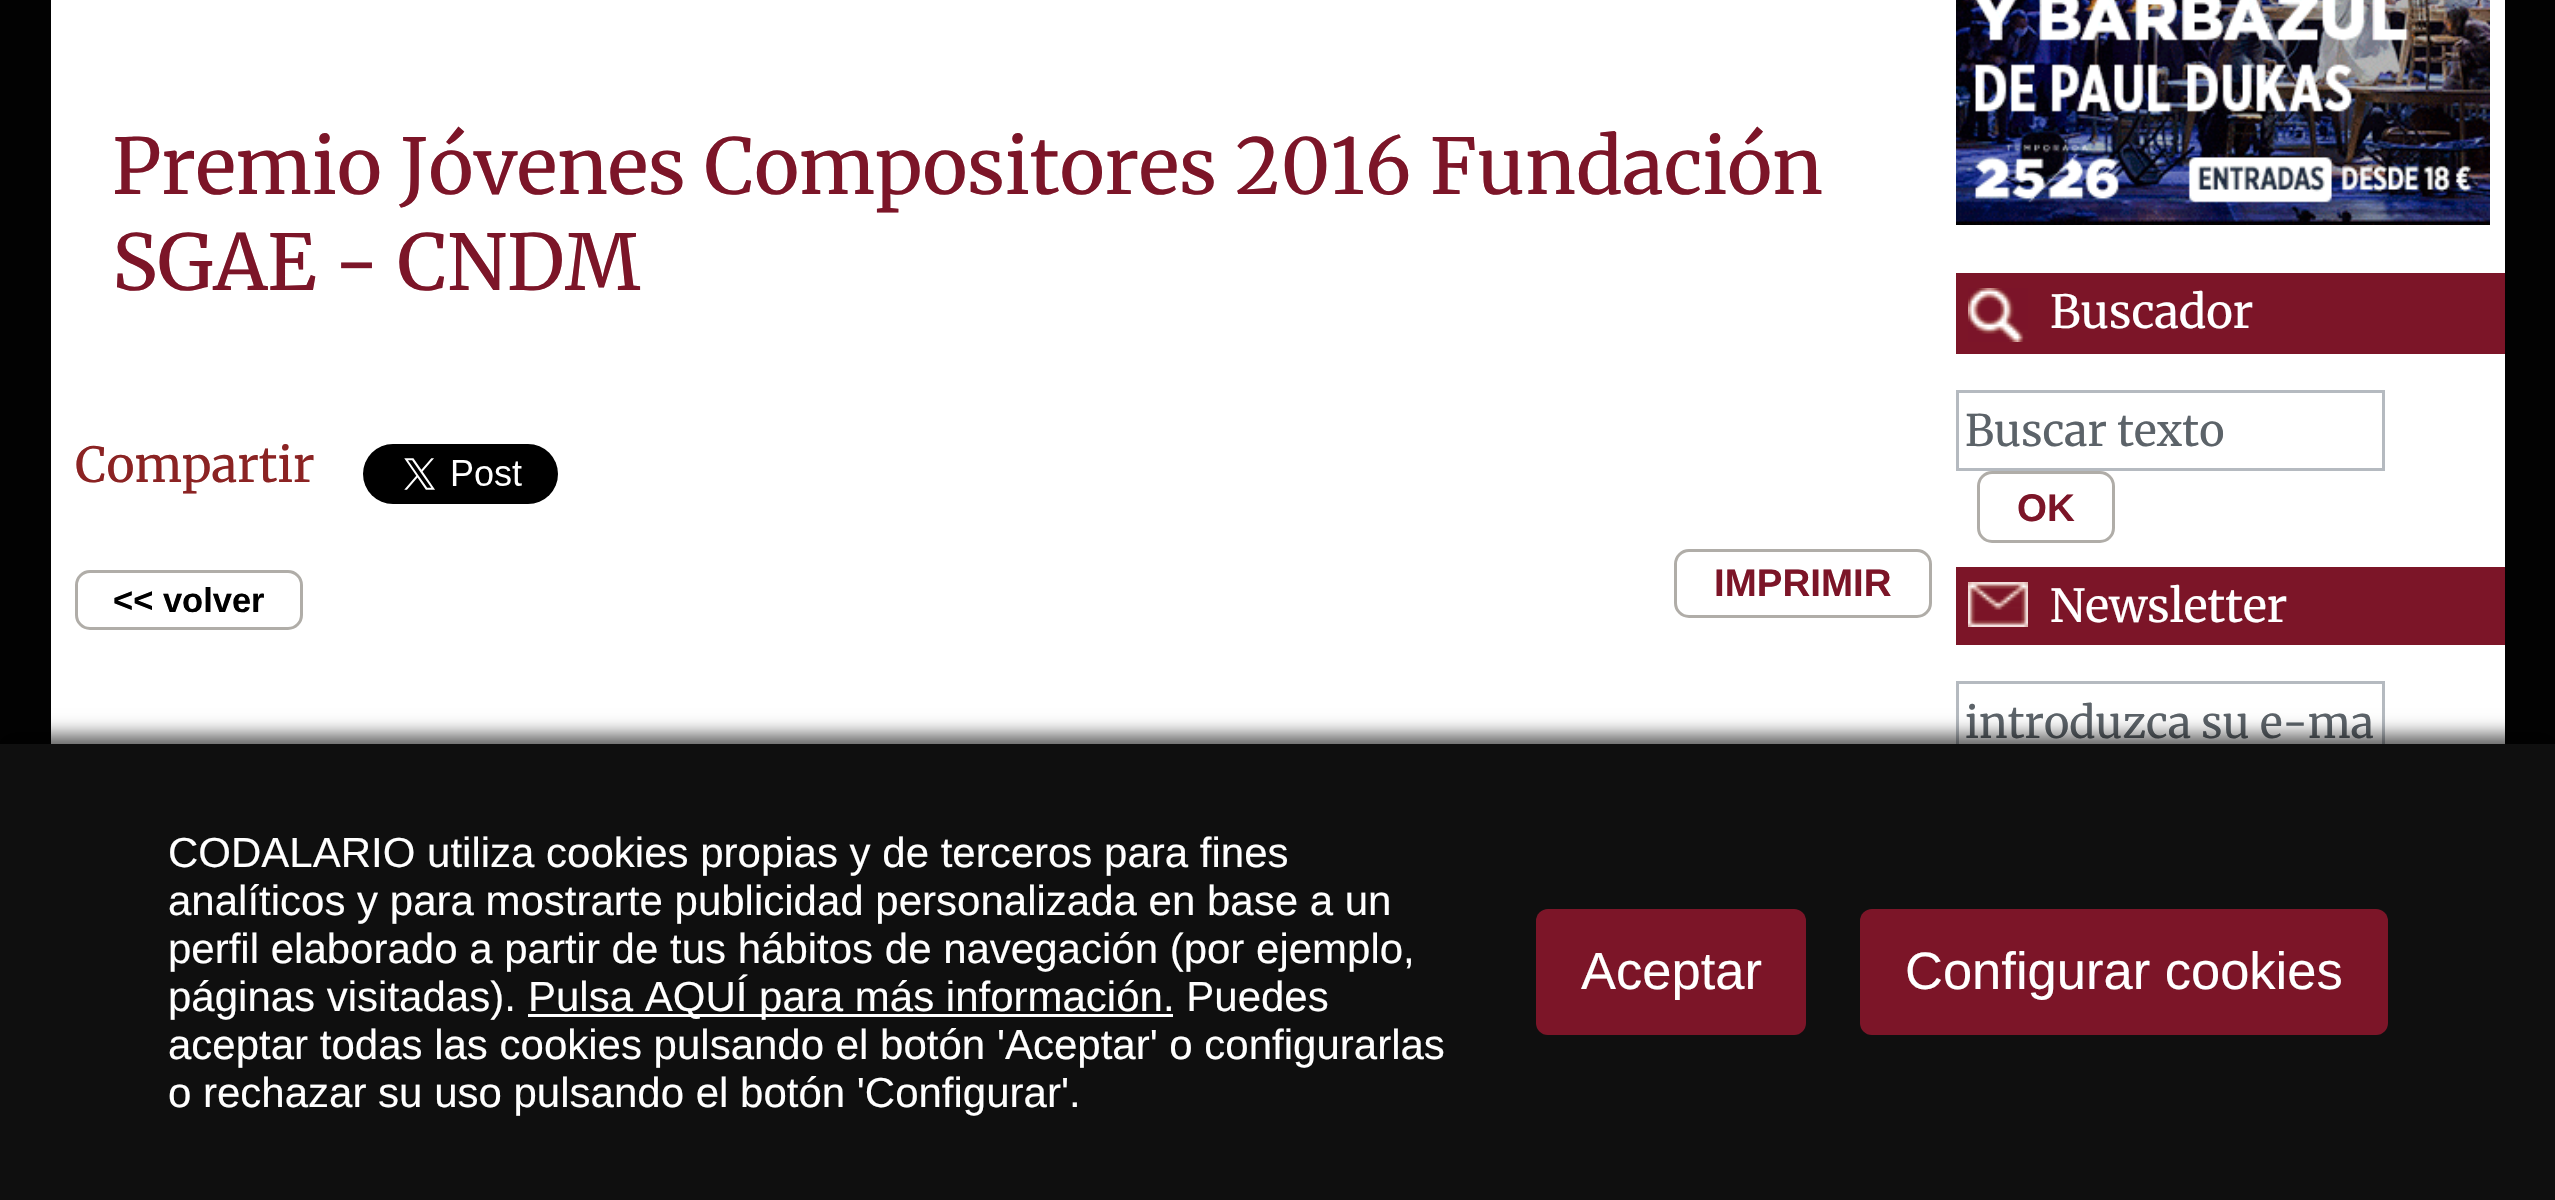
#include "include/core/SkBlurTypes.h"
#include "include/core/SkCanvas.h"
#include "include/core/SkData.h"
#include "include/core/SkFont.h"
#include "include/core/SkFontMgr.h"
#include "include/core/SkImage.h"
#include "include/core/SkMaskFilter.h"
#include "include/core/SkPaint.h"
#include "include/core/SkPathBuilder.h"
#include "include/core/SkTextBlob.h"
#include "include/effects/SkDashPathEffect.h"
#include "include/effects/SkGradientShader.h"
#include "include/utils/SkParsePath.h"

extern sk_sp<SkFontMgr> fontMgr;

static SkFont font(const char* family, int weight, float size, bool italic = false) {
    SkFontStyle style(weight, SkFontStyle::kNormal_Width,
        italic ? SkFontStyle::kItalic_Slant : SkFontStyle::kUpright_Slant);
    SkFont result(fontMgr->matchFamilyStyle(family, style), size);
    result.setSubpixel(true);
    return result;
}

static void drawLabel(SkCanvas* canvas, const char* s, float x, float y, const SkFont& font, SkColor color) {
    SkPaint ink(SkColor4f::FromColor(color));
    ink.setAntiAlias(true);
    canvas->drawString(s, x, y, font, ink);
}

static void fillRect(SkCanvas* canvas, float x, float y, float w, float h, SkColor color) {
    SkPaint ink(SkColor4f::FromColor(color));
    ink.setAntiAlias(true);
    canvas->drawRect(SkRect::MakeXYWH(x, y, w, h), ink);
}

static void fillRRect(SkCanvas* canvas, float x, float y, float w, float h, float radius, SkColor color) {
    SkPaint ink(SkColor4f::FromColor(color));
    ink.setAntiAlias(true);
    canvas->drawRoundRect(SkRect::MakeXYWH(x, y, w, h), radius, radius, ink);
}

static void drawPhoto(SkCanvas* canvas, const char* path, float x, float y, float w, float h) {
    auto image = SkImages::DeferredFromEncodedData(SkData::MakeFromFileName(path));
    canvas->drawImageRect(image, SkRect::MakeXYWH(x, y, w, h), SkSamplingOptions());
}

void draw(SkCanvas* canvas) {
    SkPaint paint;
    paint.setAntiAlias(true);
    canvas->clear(0xFF020202);
    fillRect(canvas, 51, 0, 2454, 744, 0xFFFFFFFF);
    SkFont font1 = font("Merriweather", 300, 76.8f);
    drawLabel(canvas, "Premio Jóvenes Compositores 2016 Fundación", 112, 194, font1, 0xFF7C1528);
    drawLabel(canvas, "SGAE - CNDM", 112, 290, font1, 0xFF7C1528);
    SkFont font2 = font("Merriweather", 300, 48);
    drawLabel(canvas, "Compartir", 75, 482, font2, 0xFF8B2323);
    drawPhoto(canvas, "assets/img1.png", 363, 444, 195, 60);
    paint.setStroke(true);
    paint.setStrokeWidth(3);
    paint.setColor(0xFFB0ADA8);
    canvas->drawRoundRect(SkRect::MakeXYWH(1675.5f, 550.5f, 255, 66), 13.5f, 13.5f, paint);
    SkFont font3 = font("Liberation Sans", 700, 38.5f);
    drawLabel(canvas, "IMPRIMIR", 1714, 596, font3, 0xFF7C1528);
    canvas->drawRoundRect(SkRect::MakeXYWH(76.5f, 571.5f, 225, 57), 13.5f, 13.5f, paint);
    SkFont font4 = font("Liberation Sans", 700, 34.5f);
    drawLabel(canvas, "<< volver", 113, 612, font4, 0xFF000000);
    drawPhoto(canvas, "assets/img2.png", 1956, 0, 534, 225);
    fillRect(canvas, 1956, 273, 549, 81, 0xFF7C1528);
    drawPhoto(canvas, "assets/img3.png", 1968, 288, 60, 54);
    SkFont font5 = font("Merriweather", 300, 45.5f);
    drawLabel(canvas, "Buscador", 2050, 328, font5, 0xFFFFFFFF);
    paint.setColor(0xFFB5BAC0);
    canvas->drawRect(SkRect::MakeXYWH(1957.5f, 391.5f, 426, 78), paint);
    SkFont font6 = font("Merriweather", 300, 43.25f);
    drawLabel(canvas, "Buscar texto", 1965, 446, font6, 0xFF5C6369);
    paint.setColor(0xFFB0ADA8);
    canvas->drawRoundRect(SkRect::MakeXYWH(1978.5f, 472.5f, 135, 69), 13.5f, 13.5f, paint);
    drawLabel(canvas, "OK", 2017, 521, font3, 0xFF7C1528);
    fillRect(canvas, 1956, 567, 549, 78, 0xFF7C1528);
    drawPhoto(canvas, "assets/img4.png", 1968, 582, 60, 45);
    drawLabel(canvas, "Newsletter", 2050, 622, font5, 0xFFFFFFFF);
    paint.setColor(0xFFB5BAC0);
    canvas->drawRect(SkRect::MakeXYWH(1957.5f, 682.5f, 426, 78), paint);
    drawLabel(canvas, "introduzca su e-ma", 1965, 738, font6, 0xFF5C6369);
    paint.setStroke(false);
    paint.setColor(0xA6000000);
    paint.setMaskFilter(SkMaskFilter::MakeBlur(kNormal_SkBlurStyle, 9));
    canvas->drawRect(SkRect::MakeXYWH(0, 735, 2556, 456), paint);
    paint.setMaskFilter(nullptr);
    fillRect(canvas, 0, 744, 2555, 456, 0xFF0F0F0F);
    SkFont font7 = font("Liberation Sans", 400, 42);
    drawLabel(canvas, "CODALARIO utiliza cookies propias y de terceros para fines", 168, 867, font7, 0xFFFFFFFF);
    drawLabel(canvas, "analíticos y para mostrarte publicidad personalizada en base a un", 168, 915, font7, 0xFFFFFFFF);
    drawLabel(canvas, "perfil elaborado a partir de tus hábitos de navegación (por ejemplo,", 168, 963, font7, 0xFFFFFFFF);
    drawLabel(canvas, "páginas visitadas).", 168, 1011, font7, 0xFFFFFFFF);
    fillRect(canvas, 528, 1014, 645, 3, 0xFFFFFFFF);
    drawLabel(canvas, "Pulsa AQUÍ para más información. Puedes", 528, 1011, font7, 0xFFFFFFFF);
    drawLabel(canvas, "aceptar todas las cookies pulsando el botón 'Aceptar' o configurarlas", 168, 1059, font7, 0xFFFFFFFF);
    drawLabel(canvas, "o rechazar su uso pulsando el botón 'Configurar'.", 168, 1107, font7, 0xFFFFFFFF);
    fillRRect(canvas, 1536, 909, 270, 126, 12, 0xFF7C1528);
    SkFont font8 = font("Liberation Sans", 400, 52.5f);
    drawLabel(canvas, "Aceptar", 1581, 989, font8, 0xFFFFFFFF);
    fillRRect(canvas, 1860, 909, 528, 126, 12, 0xFF7C1528);
    drawLabel(canvas, "Configurar cookies", 1905, 989, font8, 0xFFFFFFFF);
}
